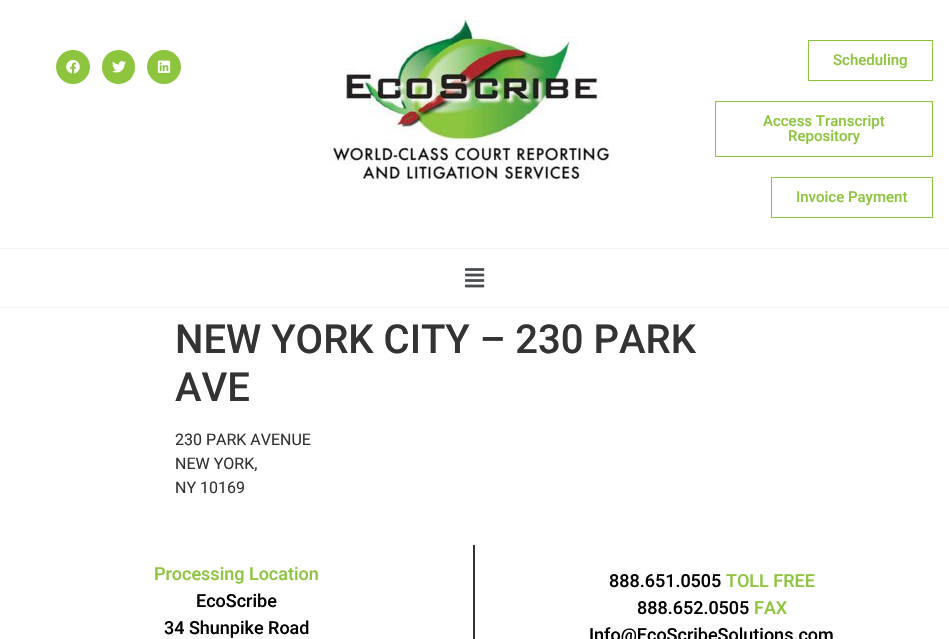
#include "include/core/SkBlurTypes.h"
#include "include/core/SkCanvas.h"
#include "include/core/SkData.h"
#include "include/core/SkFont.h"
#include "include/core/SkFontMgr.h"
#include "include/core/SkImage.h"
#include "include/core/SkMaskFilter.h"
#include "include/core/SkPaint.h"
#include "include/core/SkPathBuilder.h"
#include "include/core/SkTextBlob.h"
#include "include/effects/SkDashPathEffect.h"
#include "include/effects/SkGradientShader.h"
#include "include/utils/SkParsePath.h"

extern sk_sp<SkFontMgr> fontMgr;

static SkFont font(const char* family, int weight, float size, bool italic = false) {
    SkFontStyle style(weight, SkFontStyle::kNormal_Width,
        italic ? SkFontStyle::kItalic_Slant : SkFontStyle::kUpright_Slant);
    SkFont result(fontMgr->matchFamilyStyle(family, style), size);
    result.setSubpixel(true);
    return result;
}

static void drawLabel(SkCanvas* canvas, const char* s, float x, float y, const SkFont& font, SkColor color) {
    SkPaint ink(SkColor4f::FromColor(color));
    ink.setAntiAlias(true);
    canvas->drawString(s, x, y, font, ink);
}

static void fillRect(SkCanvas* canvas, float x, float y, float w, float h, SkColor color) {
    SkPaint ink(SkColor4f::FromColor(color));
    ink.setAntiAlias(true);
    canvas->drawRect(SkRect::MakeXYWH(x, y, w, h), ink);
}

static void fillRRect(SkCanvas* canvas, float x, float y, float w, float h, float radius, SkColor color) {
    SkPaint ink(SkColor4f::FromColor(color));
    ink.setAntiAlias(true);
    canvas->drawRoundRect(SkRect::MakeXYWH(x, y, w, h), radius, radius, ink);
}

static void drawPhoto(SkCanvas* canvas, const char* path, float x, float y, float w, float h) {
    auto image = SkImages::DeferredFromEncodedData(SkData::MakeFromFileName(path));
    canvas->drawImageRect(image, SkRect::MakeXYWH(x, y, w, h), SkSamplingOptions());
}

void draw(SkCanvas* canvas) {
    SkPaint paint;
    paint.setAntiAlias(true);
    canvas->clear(0xFFFFFFFF);
    paint.setColor(0xFF8DC53E);
    canvas->drawCircle(73, 67, 17, paint);
    drawPhoto(canvas, "assets/img1.png", 66, 60, 14, 14);
    fillRRect(canvas, 102, 50, 33, 34, 16.5f, 0xFF8DC53E);
    drawPhoto(canvas, "assets/img2.png", 112, 61, 14, 12);
    canvas->drawCircle(164, 67, 17, paint);
    drawPhoto(canvas, "assets/img3.png", 157, 60, 14, 13);
    drawPhoto(canvas, "assets/img4.png", 329, 20, 280, 160);
    paint.setStroke(true);
    paint.setStrokeWidth(1);
    canvas->drawRect(SkRect::MakeXYWH(808.5f, 40.5f, 124, 40), paint);
    SkFont font1 = font("Roboto", 500, 15);
    drawLabel(canvas, "Scheduling", 833, 65, font1, 0xFF8DC53E);
    canvas->drawRect(SkRect::MakeXYWH(715.5f, 101.5f, 217, 55), paint);
    drawLabel(canvas, "Access Transcript", 763, 126, font1, 0xFF8DC53E);
    drawLabel(canvas, "Repository", 788, 141, font1, 0xFF8DC53E);
    canvas->drawRect(SkRect::MakeXYWH(771.5f, 177.5f, 161, 40), paint);
    drawLabel(canvas, "Invoice Payment", 796, 202, font1, 0xFF8DC53E);
    fillRect(canvas, 0, 248, 949, 1, 0xFFF4F4F4);
    fillRect(canvas, 0, 307, 949, 1, 0xFFF4F4F4);
    drawPhoto(canvas, "assets/img5.png", 465, 268, 20, 20);
    SkFont font2 = font("Roboto", 500, 40);
    drawLabel(canvas, "NEW YORK CITY – 230 PARK", 175, 353, font2, 0xFF333333);
    drawLabel(canvas, "AVE", 175, 401, font2, 0xFF333333);
    SkFont font3 = font("Roboto", 400, 16);
    drawLabel(canvas, "230 PARK AVENUE", 175, 445, font3, 0xFF333333);
    drawLabel(canvas, "NEW YORK,", 175, 469, font3, 0xFF333333);
    drawLabel(canvas, "NY 10169", 175, 493, font3, 0xFF333333);
    fillRect(canvas, 473, 545, 2, 94, 0xFF333333);
    SkFont font4 = font("Roboto", 500, 18);
    drawLabel(canvas, "Processing Location", 154, 580, font4, 0xFF8DC53E);
    drawLabel(canvas, "EcoScribe", 196, 607, font4, 0xFF000000);
    drawLabel(canvas, "34 Shunpike Road", 164, 634, font4, 0xFF000000);
    drawLabel(canvas, "888.651.0505", 609, 587, font4, 0xFF000000);
    drawLabel(canvas, "TOLL FREE", 726, 587, font4, 0xFF8DC53E);
    drawLabel(canvas, "888.652.0505", 637, 614, font4, 0xFF000000);
    drawLabel(canvas, "FAX", 754, 614, font4, 0xFF8DC53E);
    drawLabel(canvas, "Info@EcoScribeSolutions.com", 589, 641, font4, 0xFF000000);
}
